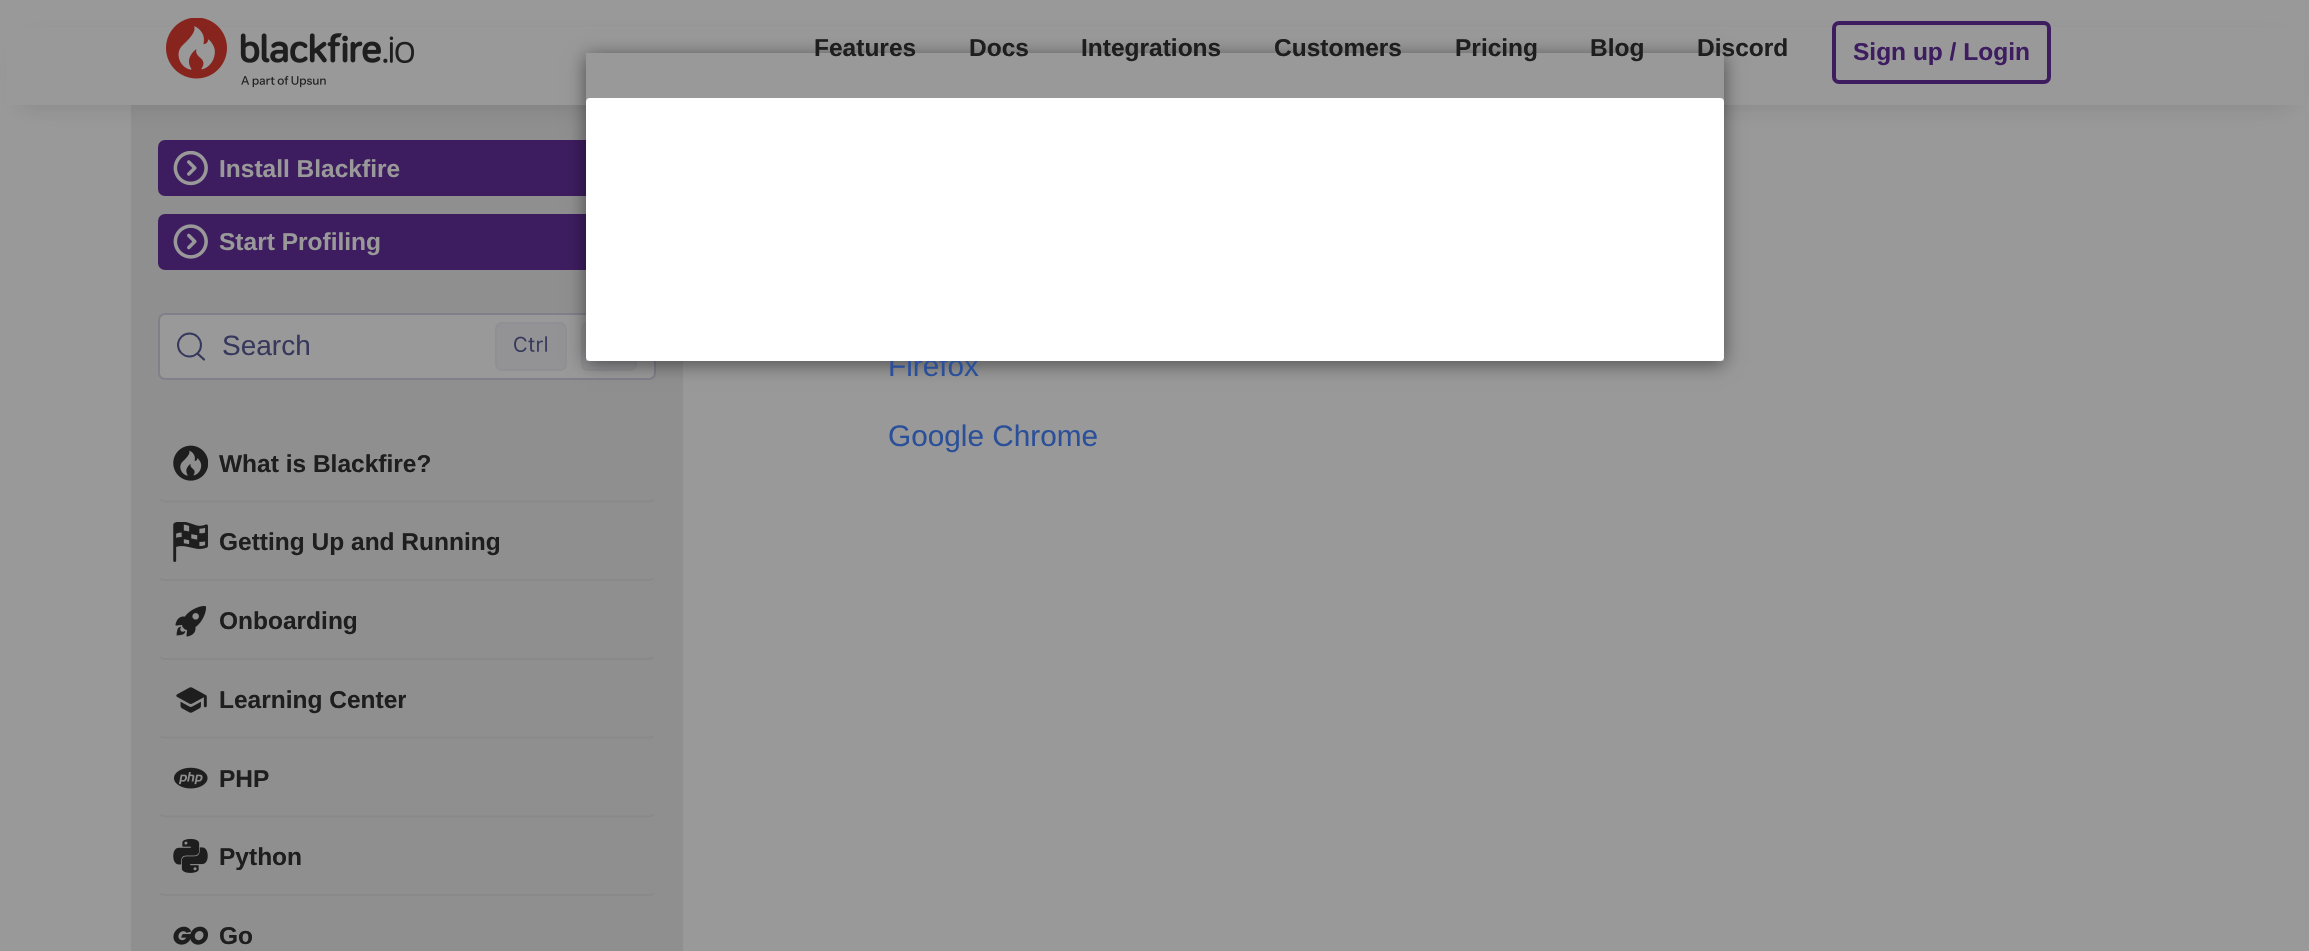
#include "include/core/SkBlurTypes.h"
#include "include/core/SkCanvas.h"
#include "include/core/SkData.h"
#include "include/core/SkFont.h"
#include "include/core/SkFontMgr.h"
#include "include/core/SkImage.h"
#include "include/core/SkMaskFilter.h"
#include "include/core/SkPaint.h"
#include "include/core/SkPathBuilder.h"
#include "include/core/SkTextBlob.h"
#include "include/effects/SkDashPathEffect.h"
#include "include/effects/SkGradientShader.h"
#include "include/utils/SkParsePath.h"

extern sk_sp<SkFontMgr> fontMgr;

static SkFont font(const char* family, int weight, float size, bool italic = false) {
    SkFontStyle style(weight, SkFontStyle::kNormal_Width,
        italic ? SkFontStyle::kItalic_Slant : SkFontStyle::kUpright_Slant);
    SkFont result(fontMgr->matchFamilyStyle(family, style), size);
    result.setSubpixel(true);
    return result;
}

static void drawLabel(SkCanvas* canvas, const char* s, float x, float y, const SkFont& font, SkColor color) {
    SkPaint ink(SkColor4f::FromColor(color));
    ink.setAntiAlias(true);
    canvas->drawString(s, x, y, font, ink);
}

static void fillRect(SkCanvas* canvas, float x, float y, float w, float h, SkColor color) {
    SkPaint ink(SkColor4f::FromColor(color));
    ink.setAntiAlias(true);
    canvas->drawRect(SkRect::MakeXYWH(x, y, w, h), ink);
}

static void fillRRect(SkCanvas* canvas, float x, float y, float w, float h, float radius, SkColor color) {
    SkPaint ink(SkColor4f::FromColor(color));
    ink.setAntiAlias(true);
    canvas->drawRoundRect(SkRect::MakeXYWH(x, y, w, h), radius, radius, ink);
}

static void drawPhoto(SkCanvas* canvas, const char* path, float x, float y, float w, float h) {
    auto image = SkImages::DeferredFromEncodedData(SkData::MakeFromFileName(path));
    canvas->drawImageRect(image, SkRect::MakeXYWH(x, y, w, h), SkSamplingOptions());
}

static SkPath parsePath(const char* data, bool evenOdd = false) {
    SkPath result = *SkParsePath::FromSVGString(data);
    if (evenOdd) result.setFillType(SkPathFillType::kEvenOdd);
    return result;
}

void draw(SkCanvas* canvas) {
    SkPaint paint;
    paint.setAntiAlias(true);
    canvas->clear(0xFF999999);
    fillRect(canvas, 131, 105, 552, 846, 0xFF8F8F8F);
    fillRRect(canvas, 158, 140, 498, 56, 7, 0xFF3D1D5F);
    paint.setColor(0x2B1E1E1E);
    paint.setMaskFilter(SkMaskFilter::MakeBlur(kNormal_SkBlurStyle, 13));
    canvas->drawRect(SkRect::MakeXYWH(21, 42, 2268, 63), paint);
    paint.setMaskFilter(nullptr);
    fillRect(canvas, 6, 27, 2298, 78, 0xFF999999);
    fillRRect(canvas, 158, 214, 498, 56, 7, 0xFF3D1D5F);
    paint.setColor(0xFF999999);
    canvas->drawRoundRect(SkRect::MakeXYWH(159, 314, 496, 65), 6, 6, paint);
    paint.setStroke(true);
    paint.setStrokeWidth(2);
    paint.setColor(0xFF80808B);
    canvas->drawRoundRect(SkRect::MakeXYWH(159, 314, 496, 65), 6, 6, paint);
    fillRRect(canvas, 495, 322, 72, 49, 7, 0xFF939396);
    paint.setColor(0x3380808B);
    canvas->drawRoundRect(SkRect::MakeXYWH(496, 323, 70, 47), 6, 6, paint);
    fillRRect(canvas, 581, 322, 56, 49, 7, 0xFF939396);
    canvas->drawRoundRect(SkRect::MakeXYWH(582, 323, 54, 47), 6, 6, paint);
    canvas->save();
    canvas->clipPath(parsePath("M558 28H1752V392H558ZM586 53H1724V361H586Z", true), true);
    paint.setStroke(false);
    paint.setColor(0x80000000);
    paint.setMaskFilter(SkMaskFilter::MakeBlur(kNormal_SkBlurStyle, 9));
    canvas->drawRect(SkRect::MakeXYWH(586, 56, 1138, 308), paint);
    paint.setMaskFilter(nullptr);
    canvas->restore();
    SkFont font1 = font("Liberation Sans", 400, 29.75f);
    drawLabel(canvas, "Firefox", 888, 376, font1, 0xFF2B5099);
    fillRRect(canvas, 586, 98, 1138, 263, 4, 0xFFFFFFFF);
    drawPhoto(canvas, "assets/img1.png", 166, 18, 249, 70);
    SkFont font2 = font("Liberation Sans", 700, 24.5f);
    drawLabel(canvas, "Features", 814, 56, font2, 0xFF1E1E1E);
    drawLabel(canvas, "Docs", 969, 56, font2, 0xFF1E1E1E);
    drawLabel(canvas, "Integrations", 1081, 56, font2, 0xFF1E1E1E);
    drawLabel(canvas, "Customers", 1274, 56, font2, 0xFF1E1E1E);
    drawLabel(canvas, "Pricing", 1455, 56, font2, 0xFF1E1E1E);
    drawLabel(canvas, "Blog", 1590, 56, font2, 0xFF1E1E1E);
    drawLabel(canvas, "Discord", 1697, 56, font2, 0xFF1E1E1E);
    paint.setStroke(true);
    paint.setStrokeWidth(4);
    paint.setColor(0xFF3D1D5F);
    canvas->drawRoundRect(SkRect::MakeXYWH(1834, 23, 215, 59), 5, 5, paint);
    drawLabel(canvas, "Sign up / Login", 1853, 60, font2, 0xFF3D1D5F);
    drawPhoto(canvas, "assets/img2.png", 173, 151, 35, 35);
    drawLabel(canvas, "Install Blackfire", 219, 177, font2, 0xFF999999);
    drawPhoto(canvas, "assets/img3.png", 173, 224, 35, 35);
    drawLabel(canvas, "Start Profiling", 219, 250, font2, 0xFF999999);
    paint.setStrokeWidth(2);
    paint.setColor(0xFF36385C);
    canvas->drawCircle(189.5f, 345, 11.5f, paint);
    paint.setStrokeWidth(2.3f);
    paint.setStrokeCap(SkPaint::kRound_Cap);
    paint.setStrokeJoin(SkPaint::kRound_Join);
    canvas->drawPath(parsePath("M204 359.5L197.5 353.5"), paint);
    SkFont font3 = font("Liberation Sans", 400, 28);
    drawLabel(canvas, "Search", 222, 355, font3, 0xFF36385C);
    drawPhoto(canvas, "assets/img4.png", 514, 336, 33, 17);
    paint.setStrokeWidth(1.8f);
    paint.setStrokeCap(SkPaint::kButt_Cap);
    paint.setStrokeJoin(SkPaint::kMiter_Join);
    paint.setColor(0xFF898989);
    canvas->drawPath(parsePath("M653.5 499.5C652.5 500.5 651 501.5 649 501.5H164.5C163 501.5 161.5 500.5 160 499.5"), paint);
    drawPhoto(canvas, "assets/img5.png", 173, 445, 35, 36);
    drawLabel(canvas, "What is Blackfire?", 219, 472, font2, 0xFF1E1E1E);
    canvas->drawPath(parsePath("M653.5 578.5C652.5 579.5 651 580 649 580H164.5C163 580 161.5 579.5 160 578.5"), paint);
    drawPhoto(canvas, "assets/img6.png", 173, 522, 35, 40);
    drawLabel(canvas, "Getting Up and Running", 219, 550, font2, 0xFF1E1E1E);
    canvas->drawPath(parsePath("M653.5 657C652.5 658 651 659 649 659H164.5C163 659 161.5 658 160 657"), paint);
    drawPhoto(canvas, "assets/img7.png", 175, 606, 32, 31);
    drawLabel(canvas, "Onboarding", 219, 629, font2, 0xFF1E1E1E);
    canvas->drawPath(parsePath("M653.5 736C652.5 737 651 737.5 649 737.5H164.5C163 737.5 161.5 737 160 736"), paint);
    drawPhoto(canvas, "assets/img8.png", 176, 687, 31, 26);
    canvas->save();
    canvas->clipRect(SkRect::MakeXYWH(219, 686, 187, 28));
    drawLabel(canvas, "Learning Center", 219, 708, font2, 0xFF1E1E1E);
    canvas->restore();
    canvas->drawPath(parsePath("M653.5 814.5C652.5 815.5 651 816.5 649 816.5H164.5C163 816.5 161.5 815.5 160 814.5"), paint);
    drawPhoto(canvas, "assets/img9.png", 174, 767, 34, 22);
    drawLabel(canvas, "PHP", 219, 787, font2, 0xFF1E1E1E);
    canvas->drawPath(parsePath("M653.5 893.5C652.5 894.5 651 895 649 895H164.5C163 895 161.5 894.5 160 893.5"), paint);
    drawPhoto(canvas, "assets/img10.png", 173, 838, 35, 35);
    drawLabel(canvas, "Python", 219, 865, font2, 0xFF1E1E1E);
    drawPhoto(canvas, "assets/img11.png", 173, 926, 35, 19);
    drawLabel(canvas, "Go", 219, 944, font2, 0xFF1E1E1E);
    drawLabel(canvas, "Google Chrome", 888, 446, font1, 0xFF2B5099);
}
